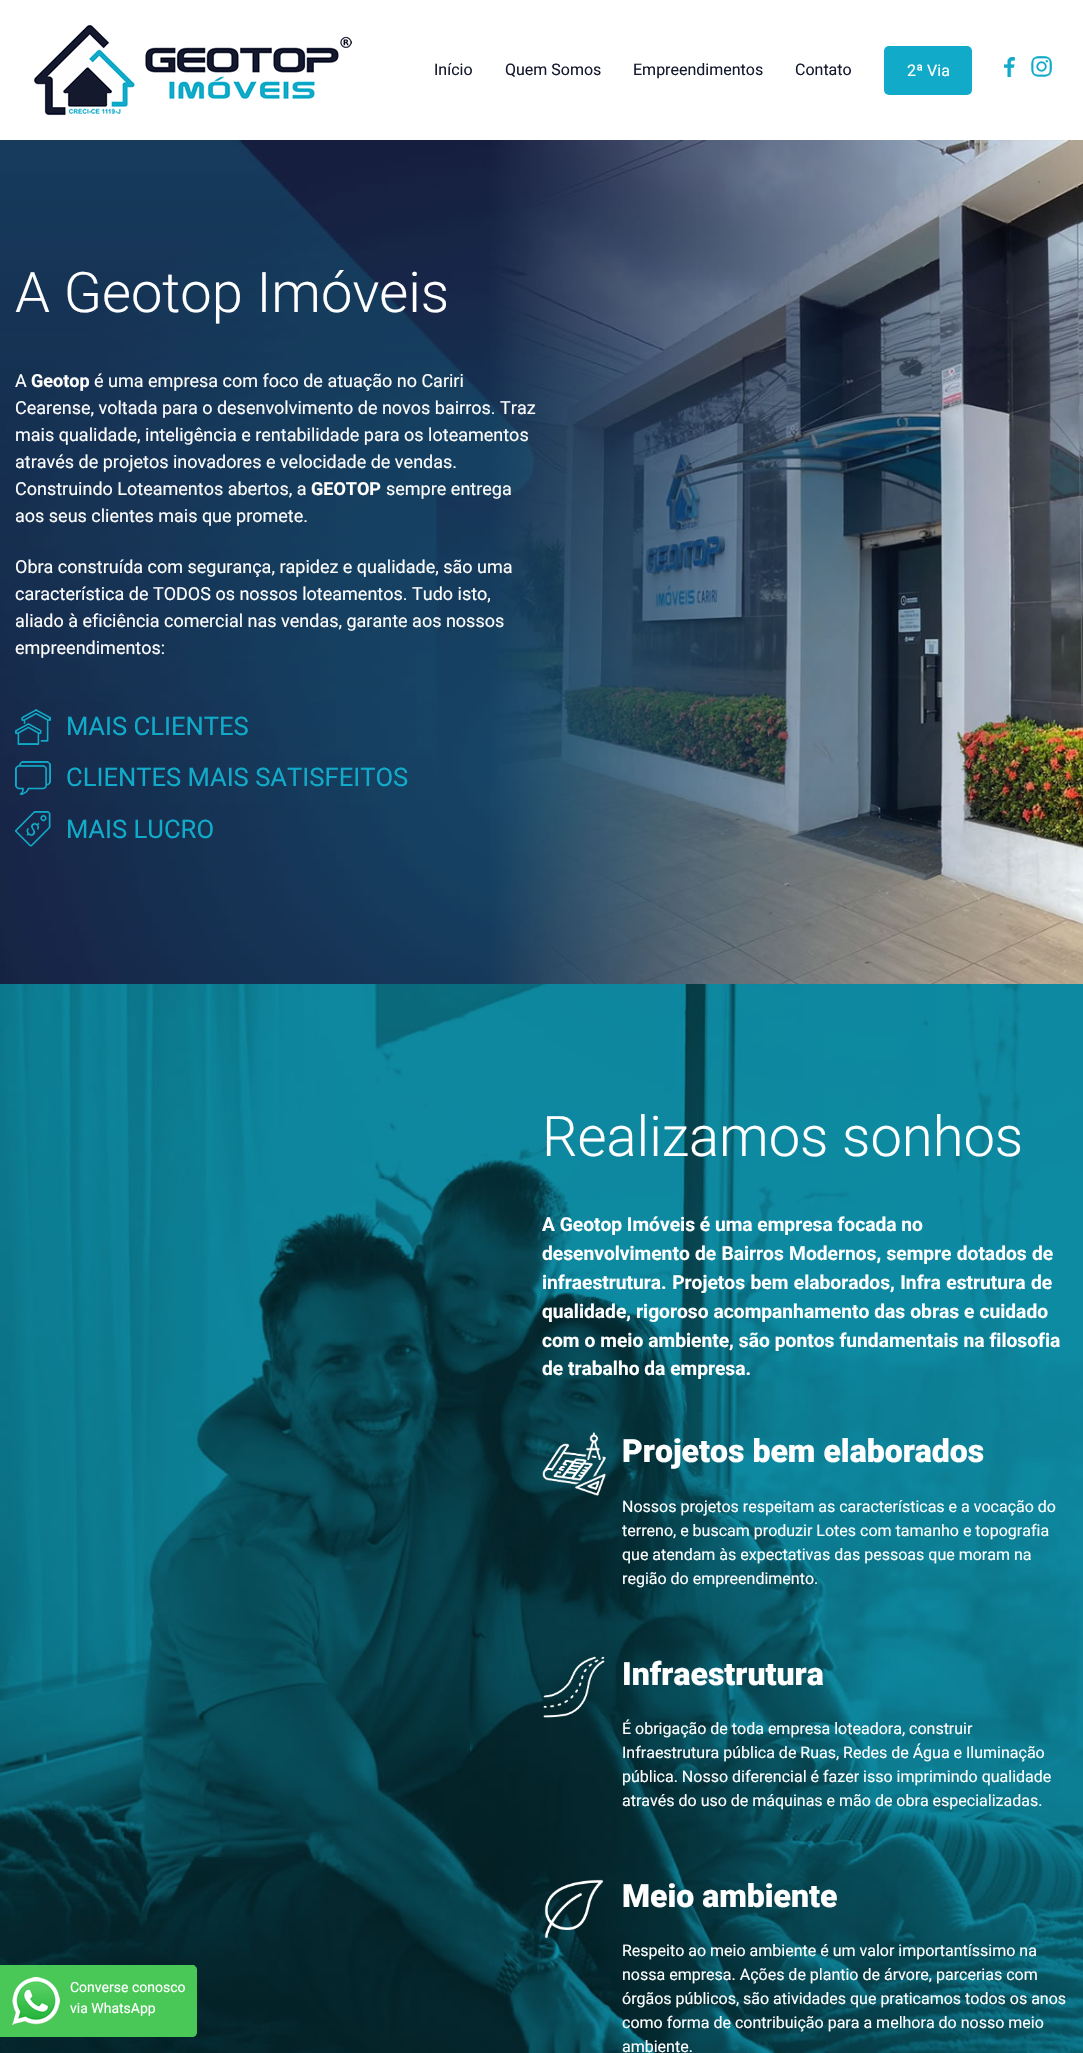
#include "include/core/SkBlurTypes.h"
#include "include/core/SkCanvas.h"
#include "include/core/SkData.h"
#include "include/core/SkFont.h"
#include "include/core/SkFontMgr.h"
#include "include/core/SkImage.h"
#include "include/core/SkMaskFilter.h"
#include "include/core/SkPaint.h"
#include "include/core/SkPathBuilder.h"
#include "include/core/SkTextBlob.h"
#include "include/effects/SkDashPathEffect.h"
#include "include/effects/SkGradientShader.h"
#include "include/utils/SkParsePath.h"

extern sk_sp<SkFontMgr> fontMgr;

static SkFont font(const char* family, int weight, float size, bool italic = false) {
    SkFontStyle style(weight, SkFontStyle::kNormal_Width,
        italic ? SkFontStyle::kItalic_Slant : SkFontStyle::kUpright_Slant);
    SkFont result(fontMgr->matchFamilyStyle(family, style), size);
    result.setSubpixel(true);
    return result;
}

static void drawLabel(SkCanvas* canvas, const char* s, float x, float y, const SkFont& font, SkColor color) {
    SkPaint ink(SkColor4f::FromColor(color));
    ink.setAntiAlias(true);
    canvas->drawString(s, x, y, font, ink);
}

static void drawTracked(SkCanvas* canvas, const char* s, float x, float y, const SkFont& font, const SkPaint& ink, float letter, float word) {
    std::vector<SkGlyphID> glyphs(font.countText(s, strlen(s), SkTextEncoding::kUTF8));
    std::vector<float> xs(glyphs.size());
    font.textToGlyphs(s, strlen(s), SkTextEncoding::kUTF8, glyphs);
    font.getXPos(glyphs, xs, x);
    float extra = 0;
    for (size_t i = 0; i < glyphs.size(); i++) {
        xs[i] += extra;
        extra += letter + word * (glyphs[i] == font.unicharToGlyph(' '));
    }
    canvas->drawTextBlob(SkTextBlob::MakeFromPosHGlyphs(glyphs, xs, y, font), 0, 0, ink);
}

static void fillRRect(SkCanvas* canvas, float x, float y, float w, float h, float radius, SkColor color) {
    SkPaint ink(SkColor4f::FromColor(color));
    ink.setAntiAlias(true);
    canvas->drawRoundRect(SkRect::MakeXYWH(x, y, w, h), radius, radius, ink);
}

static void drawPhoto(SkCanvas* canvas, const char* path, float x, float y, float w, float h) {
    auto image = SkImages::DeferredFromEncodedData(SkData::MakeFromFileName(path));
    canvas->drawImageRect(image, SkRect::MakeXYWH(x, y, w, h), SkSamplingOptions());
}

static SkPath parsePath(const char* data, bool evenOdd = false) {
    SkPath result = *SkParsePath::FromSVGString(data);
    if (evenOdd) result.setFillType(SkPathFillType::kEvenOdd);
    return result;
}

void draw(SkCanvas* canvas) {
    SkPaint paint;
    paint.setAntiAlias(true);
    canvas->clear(0xFFFFFFFF);
    drawPhoto(canvas, "assets/img1.png", 34, 24, 318, 92);
    SkFont font1 = font("Roboto", 400, 16);
    drawLabel(canvas, "Início", 434, 75, font1, 0xFF14192E);
    drawLabel(canvas, "Quem Somos", 505, 75, font1, 0xFF14192E);
    drawLabel(canvas, "Empreendimentos", 633, 75, font1, 0xFF14192E);
    drawLabel(canvas, "Contato", 795, 75, font1, 0xFF14192E);
    fillRRect(canvas, 884, 46, 88, 49, 5, 0xFF11ABC9);
    drawLabel(canvas, "2ª Via", 907, 76, font1, 0xFFFFFFFF);
    drawPhoto(canvas, "assets/img2.png", 1004, 57, 11, 20);
    drawPhoto(canvas, "assets/img3.png", 1031, 56, 21, 21);
    drawPhoto(canvas, "assets/img4.png", 0, 140, 1083, 844);
    SkFont font2 = font("Roboto", 300, 56);
    drawLabel(canvas, "A Geotop Imóveis", 15, 312, font2, 0xFFFFFFFF);
    SkFont font3 = font("Roboto", 400, 18);
    drawLabel(canvas, "A", 15, 387, font3, 0xFFFFFFFF);
    SkFont font4 = font("Roboto", 700, 18);
    drawLabel(canvas, "Geotop", 31, 387, font4, 0xFFFFFFFF);
    drawLabel(canvas, "é uma empresa com foco de atuação no Cariri", 94, 387, font3, 0xFFFFFFFF);
    drawLabel(canvas, "Cearense, voltada para o desenvolvimento de novos bairros. Traz", 15, 414, font3, 0xFFFFFFFF);
    drawLabel(canvas, "mais qualidade, inteligência e rentabilidade para os loteamentos", 15, 441, font3, 0xFFFFFFFF);
    drawLabel(canvas, "através de projetos inovadores e velocidade de vendas.", 15, 468, font3, 0xFFFFFFFF);
    drawLabel(canvas, "Construindo Loteamentos abertos, a", 15, 495, font3, 0xFFFFFFFF);
    drawLabel(canvas, "GEOTOP", 311, 495, font4, 0xFFFFFFFF);
    drawLabel(canvas, "sempre entrega", 386, 495, font3, 0xFFFFFFFF);
    drawLabel(canvas, "aos seus clientes mais que promete.", 15, 522, font3, 0xFFFFFFFF);
    drawLabel(canvas, "Obra construída com segurança, rapidez e qualidade, são uma", 15, 573, font3, 0xFFFFFFFF);
    drawLabel(canvas, "característica de TODOS os nossos loteamentos. Tudo isto,", 15, 600, font3, 0xFFFFFFFF);
    drawLabel(canvas, "aliado à eficiência comercial nas vendas, garante aos nossos", 15, 627, font3, 0xFFFFFFFF);
    drawLabel(canvas, "empreendimentos:", 15, 654, font3, 0xFFFFFFFF);
    drawPhoto(canvas, "assets/img5.png", 15, 709, 36, 36);
    SkFont font5 = font("Roboto", 400, 25.6f);
    drawLabel(canvas, "MAIS CLIENTES", 66, 735, font5, 0xFF11ABC9);
    drawPhoto(canvas, "assets/img6.png", 15, 761, 36, 34);
    drawLabel(canvas, "CLIENTES MAIS SATISFEITOS", 66, 786, font5, 0xFF11ABC9);
    drawPhoto(canvas, "assets/img7.png", 15, 811, 36, 36);
    drawLabel(canvas, "MAIS LUCRO", 66, 838, font5, 0xFF11ABC9);
    drawPhoto(canvas, "assets/img8.png", 0, 984, 1083, 1069);
    drawLabel(canvas, "Realizamos sonhos", 542, 1156, font2, 0xFFFFFFFF);
    SkFont font6 = font("Roboto", 700, 19.2f);
    drawLabel(canvas, "A Geotop Imóveis é uma empresa focada no", 542, 1231, font6, 0xFFFFFFFF);
    paint.setColor(0xFFFFFFFF);
    drawTracked(canvas, "desenvolvimento de Bairros Modernos, sempre dotados de", 542, 1260, font6, paint, 0, 0.5f);
    drawTracked(canvas, "infraestrutura. Projetos bem elaborados, Infra estrutura de", 542, 1289, font6, paint, 0, 0.75f);
    drawTracked(canvas, "qualidade, rigoroso acompanhamento das obras e cuidado", 542, 1318, font6, paint, 0, 0.25f);
    drawTracked(canvas, "com o meio ambiente, são pontos fundamentais na filosofia", 542, 1347, font6, paint, 0, 0.25f);
    drawLabel(canvas, "de trabalho da empresa.", 542, 1375, font6, 0xFFFFFFFF);
    drawPhoto(canvas, "assets/img9.png", 542, 1432, 64, 64);
    SkFont font7 = font("Roboto", 900, 32);
    drawLabel(canvas, "Projetos bem elaborados", 622, 1462, font7, 0xFFFFFFFF);
    drawLabel(canvas, "Nossos projetos respeitam as características e a vocação do", 622, 1512, font1, 0xFFFFFFFF);
    drawLabel(canvas, "terreno, e buscam produzir Lotes com tamanho e topografia", 622, 1536, font1, 0xFFFFFFFF);
    drawLabel(canvas, "que atendam às expectativas das pessoas que moram na", 622, 1560, font1, 0xFFFFFFFF);
    drawLabel(canvas, "região do empreendimento.", 622, 1584, font1, 0xFFFFFFFF);
    drawPhoto(canvas, "assets/img10.png", 543, 1656, 62, 62);
    drawLabel(canvas, "Infraestrutura", 622, 1685, font7, 0xFFFFFFFF);
    drawLabel(canvas, "É obrigação de toda empresa loteadora, construir", 622, 1734, font1, 0xFFFFFFFF);
    drawLabel(canvas, "Infraestrutura pública de Ruas, Redes de Água e Iluminação", 622, 1758, font1, 0xFFFFFFFF);
    drawLabel(canvas, "pública. Nosso diferencial é fazer isso imprimindo qualidade", 622, 1782, font1, 0xFFFFFFFF);
    drawLabel(canvas, "através do uso de máquinas e mão de obra especializadas.", 622, 1806, font1, 0xFFFFFFFF);
    drawPhoto(canvas, "assets/img11.png", 544, 1879, 60, 60);
    drawLabel(canvas, "Meio ambiente", 622, 1907, font7, 0xFFFFFFFF);
    drawLabel(canvas, "Respeito ao meio ambiente é um valor importantíssimo na", 622, 1956, font1, 0xFFFFFFFF);
    drawLabel(canvas, "nossa empresa. Ações de plantio de árvore, parcerias com", 622, 1980, font1, 0xFFFFFFFF);
    drawLabel(canvas, "órgãos públicos, são atividades que praticamos todos os anos", 622, 2004, font1, 0xFFFFFFFF);
    drawLabel(canvas, "como forma de contribuição para a melhora do nosso meio", 622, 2028, font1, 0xFFFFFFFF);
    drawLabel(canvas, "ambiente.", 622, 2052, font1, 0xFFFFFFFF);
    paint.setColor(0xFF49C858);
    canvas->drawPath(parsePath("M0 1965H192C195 1965 197 1967 197 1970V2032C197 2035 195 2037 192 2037H0Z"), paint);
    drawPhoto(canvas, "assets/img12.png", 12, 1977, 48, 48);
    SkFont font8 = font("Roboto", 400, 14);
    drawLabel(canvas, "Converse conosco", 70, 1992, font8, 0xFFFFFFFF);
    drawLabel(canvas, "via WhatsApp", 70, 2013, font8, 0xFFFFFFFF);
}
